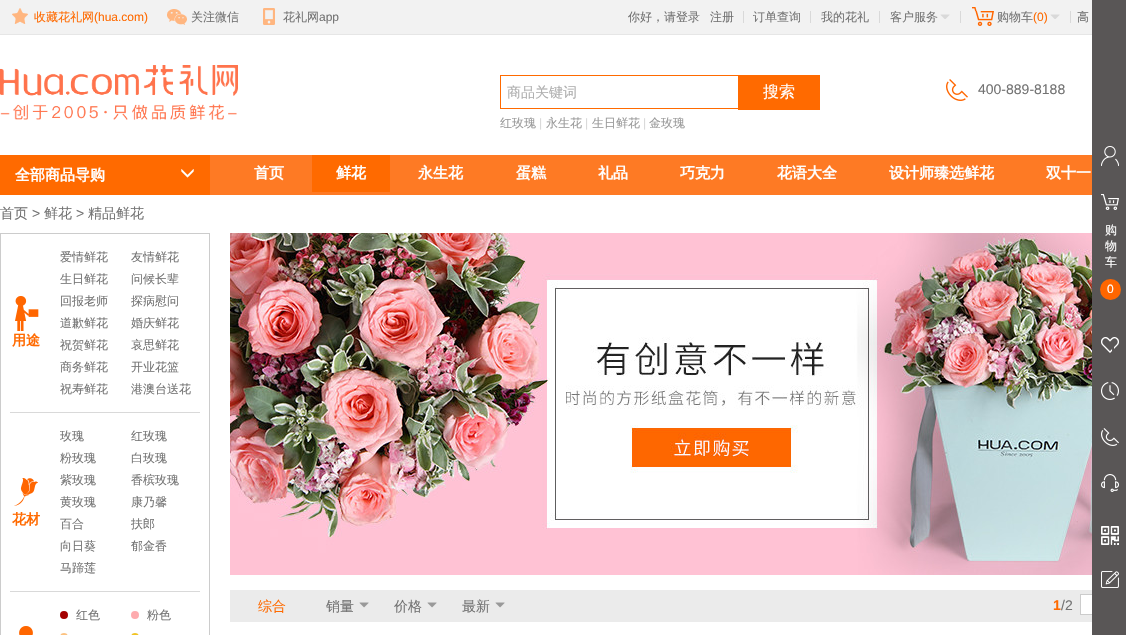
#include "include/core/SkBlurTypes.h"
#include "include/core/SkCanvas.h"
#include "include/core/SkData.h"
#include "include/core/SkFont.h"
#include "include/core/SkFontMgr.h"
#include "include/core/SkImage.h"
#include "include/core/SkMaskFilter.h"
#include "include/core/SkPaint.h"
#include "include/core/SkPathBuilder.h"
#include "include/core/SkTextBlob.h"
#include "include/effects/SkDashPathEffect.h"
#include "include/effects/SkGradientShader.h"
#include "include/utils/SkParsePath.h"

extern sk_sp<SkFontMgr> fontMgr;

static SkFont font(const char* family, int weight, float size, bool italic = false) {
    SkFontStyle style(weight, SkFontStyle::kNormal_Width,
        italic ? SkFontStyle::kItalic_Slant : SkFontStyle::kUpright_Slant);
    SkFont result(fontMgr->matchFamilyStyle(family, style), size);
    result.setSubpixel(true);
    return result;
}

static void drawLabel(SkCanvas* canvas, const char* s, float x, float y, const SkFont& font, SkColor color) {
    SkPaint ink(SkColor4f::FromColor(color));
    ink.setAntiAlias(true);
    canvas->drawString(s, x, y, font, ink);
}

static void fillRect(SkCanvas* canvas, float x, float y, float w, float h, SkColor color) {
    SkPaint ink(SkColor4f::FromColor(color));
    ink.setAntiAlias(true);
    canvas->drawRect(SkRect::MakeXYWH(x, y, w, h), ink);
}

static void drawPhoto(SkCanvas* canvas, const char* path, float x, float y, float w, float h) {
    auto image = SkImages::DeferredFromEncodedData(SkData::MakeFromFileName(path));
    canvas->drawImageRect(image, SkRect::MakeXYWH(x, y, w, h), SkSamplingOptions());
}

void draw(SkCanvas* canvas) {
    SkPaint paint;
    paint.setAntiAlias(true);
    canvas->clear(0xFFFFFFFF);
    fillRect(canvas, 0, 0, 1092, 34, 0xFFF2F2F2);
    fillRect(canvas, 0, 34, 1092, 1, 0xFFE6E6E6);
    drawPhoto(canvas, "assets/img1.png", 12, 8, 16, 16);
    SkFont font1 = font("WenQuanYi Zen Hei", 500, 12);
    drawLabel(canvas, "收藏花礼网", 34, 21, font1, 0xFFFF6A00);
    SkFont font2 = font("Liberation Sans", 400, 12);
    drawLabel(canvas, "(hua.com)", 94, 21, font2, 0xFFFF6A00);
    drawPhoto(canvas, "assets/img2.png", 167, 9, 20, 16);
    drawLabel(canvas, "关注微信", 191, 21, font1, 0xFF737373);
    drawPhoto(canvas, "assets/img3.png", 263, 8, 12, 17);
    drawLabel(canvas, "花礼网", 283, 21, font1, 0xFF737373);
    drawLabel(canvas, "app", 319, 21, font2, 0xFF737373);
    drawLabel(canvas, "你好，请登录", 628, 21, font1, 0xFF737373);
    drawLabel(canvas, "注册", 710, 21, font1, 0xFF737373);
    fillRect(canvas, 743, 11, 1, 12, 0xFFD9D9D9);
    drawLabel(canvas, "订单查询", 753, 21, font1, 0xFF737373);
    fillRect(canvas, 810, 11, 1, 12, 0xFFD9D9D9);
    drawLabel(canvas, "我的花礼", 821, 21, font1, 0xFF737373);
    fillRect(canvas, 879, 11, 1, 12, 0xFFD9D9D9);
    drawLabel(canvas, "客户服务", 890, 21, font1, 0xFF737373);
    drawPhoto(canvas, "assets/img4.png", 940, 14, 10, 5);
    fillRect(canvas, 960, 11, 1, 12, 0xFFD9D9D9);
    drawPhoto(canvas, "assets/img5.png", 972, 7, 22, 19);
    drawLabel(canvas, "购物车", 997, 21, font1, 0xFF737373);
    drawLabel(canvas, "(0)", 1033, 21, font2, 0xFFFF6A00);
    drawPhoto(canvas, "assets/img4.png", 1050, 14, 10, 5);
    fillRect(canvas, 1070, 11, 1, 12, 0xFFD9D9D9);
    drawLabel(canvas, "高", 1077, 21, font1, 0xFF737373);
    drawPhoto(canvas, "assets/img6.png", 0, 65, 238, 55);
    fillRect(canvas, 738, 75, 82, 35, 0xFFFF6A00);
    paint.setStroke(true);
    paint.setStrokeWidth(1);
    paint.setColor(0xFFFF6A00);
    canvas->drawRect(SkRect::MakeXYWH(500.5f, 75.5f, 238, 33), paint);
    SkFont font3 = font("WenQuanYi Zen Hei", 500, 14);
    drawLabel(canvas, "商品关键词", 507, 97, font3, 0xFFAEAEAE);
    SkFont font4 = font("WenQuanYi Zen Hei", 500, 16);
    drawLabel(canvas, "搜索", 763, 97, font4, 0xFFFFFFFF);
    drawLabel(canvas, "红玫瑰", 500, 127, font1, 0xFF999999);
    drawLabel(canvas, "|", 539, 127, font2, 0xFFD9D9D9);
    drawLabel(canvas, "永生花", 546, 127, font1, 0xFF999999);
    drawLabel(canvas, "|", 585, 127, font2, 0xFFD9D9D9);
    drawLabel(canvas, "生日鲜花", 592, 127, font1, 0xFF999999);
    drawLabel(canvas, "|", 643, 127, font2, 0xFFD9D9D9);
    drawLabel(canvas, "金玫瑰", 649, 127, font1, 0xFF999999);
    drawPhoto(canvas, "assets/img7.png", 946, 79, 22, 22);
    SkFont font5 = font("Liberation Sans", 400, 14);
    drawLabel(canvas, "400-889-8188", 978, 94, font5, 0xFF737373);
    fillRect(canvas, 210, 155, 882, 40, 0xFFFE7A24);
    fillRect(canvas, 0, 155, 210, 40, 0xFFFF6A00);
    SkFont font6 = font("WenQuanYi Zen Hei", 700, 15);
    drawLabel(canvas, "全部商品导购", 15, 180, font6, 0xFFFFFFFF);
    drawPhoto(canvas, "assets/img8.png", 181, 169, 13, 9);
    drawLabel(canvas, "首页", 254, 178, font6, 0xFFFFFFFF);
    fillRect(canvas, 312, 155, 78, 37, 0xFFFF6A00);
    drawLabel(canvas, "鲜花", 336, 178, font6, 0xFFFFFFFF);
    drawLabel(canvas, "永生花", 418, 178, font6, 0xFFFFFFFF);
    drawLabel(canvas, "蛋糕", 516, 178, font6, 0xFFFFFFFF);
    drawLabel(canvas, "礼品", 598, 178, font6, 0xFFFFFFFF);
    drawLabel(canvas, "巧克力", 680, 178, font6, 0xFFFFFFFF);
    drawLabel(canvas, "花语大全", 777, 178, font6, 0xFFFFFFFF);
    drawLabel(canvas, "设计师臻选鲜花", 889, 178, font6, 0xFFFFFFFF);
    drawLabel(canvas, "双十一", 1046, 178, font6, 0xFFFFFFFF);
    drawLabel(canvas, "首页", 0, 218, font3, 0xFF737373);
    drawLabel(canvas, ">", 32, 218, font5, 0xFF737373);
    drawLabel(canvas, "鲜花", 44, 218, font3, 0xFF737373);
    drawLabel(canvas, ">", 76, 218, font5, 0xFF737373);
    drawLabel(canvas, "精品鲜花", 88, 218, font3, 0xFF737373);
    paint.setColor(0xFFCCCCCC);
    canvas->drawRect(SkRect::MakeXYWH(0.5f, 233.5f, 209, 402), paint);
    fillRect(canvas, 10, 412, 190, 1, 0xFFD9D9D9);
    drawPhoto(canvas, "assets/img9.png", 15, 296, 24, 35);
    SkFont font7 = font("WenQuanYi Zen Hei", 700, 14);
    drawLabel(canvas, "用途", 12, 345, font7, 0xFFFF6A00);
    drawLabel(canvas, "爱情鲜花", 60, 261, font1, 0xFF737373);
    drawLabel(canvas, "友情鲜花", 131, 261, font1, 0xFF737373);
    drawLabel(canvas, "生日鲜花", 60, 283, font1, 0xFF737373);
    drawLabel(canvas, "问候长辈", 131, 283, font1, 0xFF737373);
    drawLabel(canvas, "回报老师", 60, 305, font1, 0xFF737373);
    drawLabel(canvas, "探病慰问", 131, 305, font1, 0xFF737373);
    drawLabel(canvas, "道歉鲜花", 60, 327, font1, 0xFF737373);
    drawLabel(canvas, "婚庆鲜花", 131, 327, font1, 0xFF737373);
    drawLabel(canvas, "祝贺鲜花", 60, 349, font1, 0xFF737373);
    drawLabel(canvas, "哀思鲜花", 131, 349, font1, 0xFF737373);
    drawLabel(canvas, "商务鲜花", 60, 371, font1, 0xFF737373);
    drawLabel(canvas, "开业花篮", 131, 371, font1, 0xFF737373);
    drawLabel(canvas, "祝寿鲜花", 60, 393, font1, 0xFF737373);
    drawLabel(canvas, "港澳台送花", 131, 393, font1, 0xFF737373);
    fillRect(canvas, 10, 591, 190, 1, 0xFFD9D9D9);
    drawPhoto(canvas, "assets/img10.png", 14, 478, 24, 28);
    drawLabel(canvas, "花材", 12, 524, font7, 0xFFFF6A00);
    drawLabel(canvas, "玫瑰", 60, 440, font1, 0xFF737373);
    drawLabel(canvas, "红玫瑰", 131, 440, font1, 0xFF737373);
    drawLabel(canvas, "粉玫瑰", 60, 462, font1, 0xFF737373);
    drawLabel(canvas, "白玫瑰", 131, 462, font1, 0xFF737373);
    drawLabel(canvas, "紫玫瑰", 60, 484, font1, 0xFF737373);
    drawLabel(canvas, "香槟玫瑰", 131, 484, font1, 0xFF737373);
    drawLabel(canvas, "黄玫瑰", 60, 506, font1, 0xFF737373);
    drawLabel(canvas, "康乃馨", 131, 506, font1, 0xFF737373);
    drawLabel(canvas, "百合", 60, 528, font1, 0xFF737373);
    drawLabel(canvas, "扶郎", 131, 528, font1, 0xFF737373);
    drawLabel(canvas, "向日葵", 60, 550, font1, 0xFF737373);
    drawLabel(canvas, "郁金香", 131, 550, font1, 0xFF737373);
    drawLabel(canvas, "马蹄莲", 60, 572, font1, 0xFF737373);
    paint.setStroke(false);
    paint.setColor(0xFFA40000);
    canvas->drawCircle(64, 615, 3, paint);
    paint.setStroke(true);
    paint.setStrokeWidth(2);
    canvas->drawCircle(64, 615, 3, paint);
    drawLabel(canvas, "红色", 76, 619, font1, 0xFF737373);
    paint.setStroke(false);
    paint.setColor(0xFFFEABAE);
    canvas->drawCircle(135, 615, 3, paint);
    paint.setStroke(true);
    canvas->drawCircle(135, 615, 3, paint);
    drawLabel(canvas, "粉色", 147, 619, font1, 0xFF737373);
    paint.setColor(0xFFFCC280);
    canvas->drawCircle(64, 637, 3, paint);
    paint.setColor(0xFFF1C323);
    canvas->drawCircle(135, 637, 3, paint);
    drawPhoto(canvas, "assets/img11.png", 19, 626, 14, 9);
    drawPhoto(canvas, "assets/img12.png", 230, 233, 862, 342);
    fillRect(canvas, 230, 590, 862, 32, 0xFFEBEBEB);
    drawLabel(canvas, "综合", 258, 611, font3, 0xFFFF6A00);
    drawLabel(canvas, "销量", 326, 611, font3, 0xFF737373);
    drawPhoto(canvas, "assets/img13.png", 359, 602, 10, 6);
    drawLabel(canvas, "价格", 394, 611, font3, 0xFF737373);
    drawPhoto(canvas, "assets/img13.png", 427, 602, 10, 6);
    drawLabel(canvas, "最新", 462, 611, font3, 0xFF737373);
    drawPhoto(canvas, "assets/img13.png", 495, 602, 10, 6);
    SkFont font8 = font("Liberation Sans", 700, 14);
    drawLabel(canvas, "1", 1053, 610, font8, 0xFFFF6A00);
    drawLabel(canvas, "/2", 1061, 610, font5, 0xFF737373);
    fillRect(canvas, 1081, 595, 11, 19, 0xFFFFFFFF);
    paint.setStrokeWidth(1);
    paint.setColor(0xFFCCCCCC);
    canvas->drawRect(SkRect::MakeXYWH(1080.5f, 594.5f, 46, 20), paint);
    fillRect(canvas, 1092, 0, 34, 635, 0xFF595656);
    drawPhoto(canvas, "assets/img14.png", 1101, 146, 18, 20);
    drawPhoto(canvas, "assets/img15.png", 1101, 194, 18, 16);
    drawLabel(canvas, "购", 1105, 234, font1, 0xFFFFFFFF);
    drawLabel(canvas, "物", 1105, 250, font1, 0xFFFFFFFF);
    drawLabel(canvas, "车", 1105, 266, font1, 0xFFFFFFFF);
    paint.setStroke(false);
    paint.setColor(0xFFFF6600);
    canvas->drawCircle(1110.5f, 289.5f, 10.5f, paint);
    drawLabel(canvas, "0", 1107, 293, font2, 0xFFFFFFFF);
    drawPhoto(canvas, "assets/img16.png", 1101, 337, 18, 16);
    drawPhoto(canvas, "assets/img17.png", 1101, 382, 18, 18);
    drawPhoto(canvas, "assets/img18.png", 1101, 428, 18, 18);
    drawPhoto(canvas, "assets/img19.png", 1101, 474, 18, 18);
    drawPhoto(canvas, "assets/img20.png", 1101, 526, 18, 19);
    drawPhoto(canvas, "assets/img21.png", 1101, 571, 18, 17);
}
